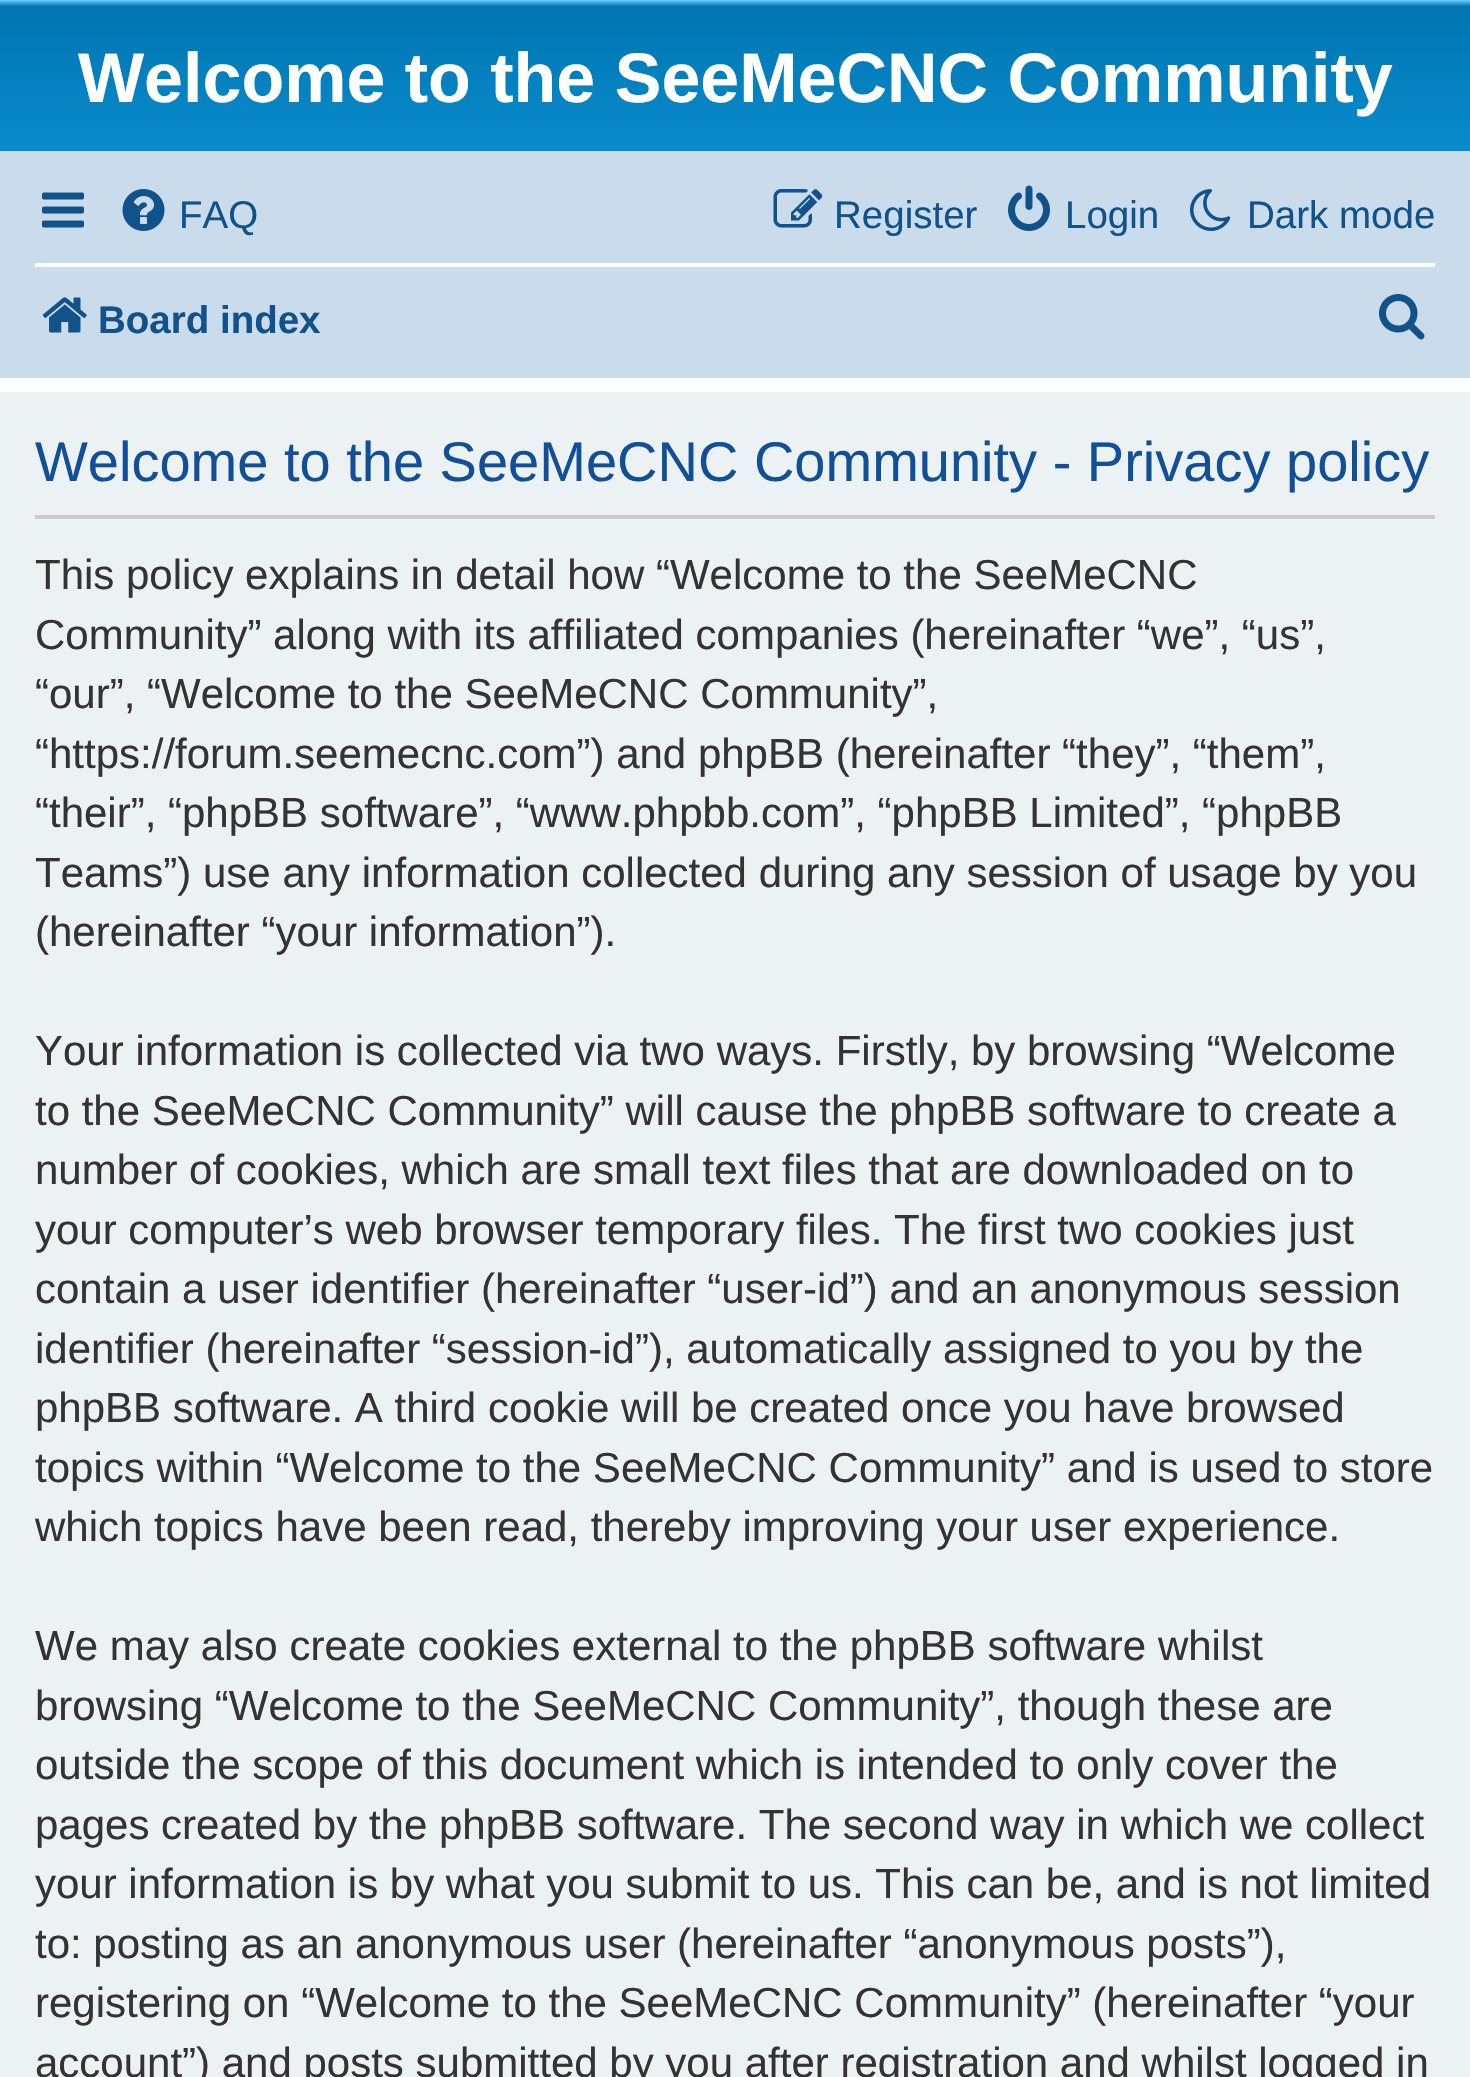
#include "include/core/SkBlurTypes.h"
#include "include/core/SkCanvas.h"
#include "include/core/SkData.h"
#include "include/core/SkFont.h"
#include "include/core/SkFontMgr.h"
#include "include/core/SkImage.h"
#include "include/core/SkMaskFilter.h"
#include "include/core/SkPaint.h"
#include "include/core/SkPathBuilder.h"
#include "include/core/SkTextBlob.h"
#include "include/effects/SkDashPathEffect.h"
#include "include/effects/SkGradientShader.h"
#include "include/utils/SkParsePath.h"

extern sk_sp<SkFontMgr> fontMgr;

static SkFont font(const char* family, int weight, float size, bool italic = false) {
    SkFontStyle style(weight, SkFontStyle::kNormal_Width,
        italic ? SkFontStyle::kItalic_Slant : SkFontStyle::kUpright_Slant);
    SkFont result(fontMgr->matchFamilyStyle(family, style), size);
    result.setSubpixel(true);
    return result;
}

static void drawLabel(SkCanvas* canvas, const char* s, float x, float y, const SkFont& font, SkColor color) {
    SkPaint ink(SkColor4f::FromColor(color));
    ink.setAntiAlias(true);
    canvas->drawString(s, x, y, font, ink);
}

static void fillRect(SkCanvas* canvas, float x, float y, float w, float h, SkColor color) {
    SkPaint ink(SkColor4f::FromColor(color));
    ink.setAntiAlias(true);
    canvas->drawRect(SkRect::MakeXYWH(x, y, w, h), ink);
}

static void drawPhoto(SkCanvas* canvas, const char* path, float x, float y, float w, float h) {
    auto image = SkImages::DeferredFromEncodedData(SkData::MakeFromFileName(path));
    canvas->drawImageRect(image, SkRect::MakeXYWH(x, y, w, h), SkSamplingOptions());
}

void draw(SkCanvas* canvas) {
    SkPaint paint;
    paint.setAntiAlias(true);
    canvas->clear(0xFFFFFFFF);
    {
        const SkColor colors[] = {0xFF6ACEFF, 0xFF0076B1, 0xFF12A3EB};
        const float stops[] = {0, 0.02f, 1};
        const SkPoint ends[] = {{735, 0}, {735, 322}};
        paint.setShader(SkGradientShader::MakeLinear(ends, colors, stops, 3, SkTileMode::kClamp));
        paint.setAlpha(255);
    }
    canvas->drawRect(SkRect::MakeXYWH(0, 0, 1470, 151), paint);
    SkFont font1 = font("Liberation Sans", 700, 70);
    drawLabel(canvas, "Welcome to the SeeMeCNC Community", 78, 102, font1, 0xFFFFFFFF);
    fillRect(canvas, 0, 151, 1470, 227, 0xFFCADCEB);
    drawPhoto(canvas, "assets/img1.png", 42, 192, 42, 36);
    drawPhoto(canvas, "assets/img2.png", 122, 189, 43, 42);
    SkFont font2 = font("Liberation Sans", 400, 38.5f);
    drawLabel(canvas, "FAQ", 179, 228, font2, 0xFF105289);
    drawPhoto(canvas, "assets/img3.png", 773, 189, 50, 39);
    drawLabel(canvas, "Register", 834, 228, font2, 0xFF105289);
    drawPhoto(canvas, "assets/img4.png", 1008, 185, 42, 46);
    drawLabel(canvas, "Login", 1065, 228, font2, 0xFF105289);
    drawPhoto(canvas, "assets/img5.png", 1190, 189, 41, 42);
    drawLabel(canvas, "Dark mode", 1247, 228, font2, 0xFF105289);
    fillRect(canvas, 35, 263, 1400, 4, 0xFFFFFFFF);
    drawPhoto(canvas, "assets/img6.png", 42, 297, 45, 36);
    SkFont font3 = font("Liberation Sans", 700, 38.5f);
    drawLabel(canvas, "Board index", 98, 333, font3, 0xFF105289);
    drawPhoto(canvas, "assets/img7.png", 1379, 294, 46, 46);
    fillRect(canvas, 0, 392, 1470, 1685, 0xFFECF1F3);
    fillRect(canvas, 35, 515, 1400, 4, 0xFFCCCCCC);
    SkFont font4 = font("Liberation Sans", 400, 56);
    drawLabel(canvas, "Welcome to the SeeMeCNC Community - Privacy policy", 35, 481, font4, 0xFF115098);
    SkFont font5 = font("Liberation Sans", 400, 42);
    drawLabel(canvas, "This policy explains in detail how “Welcome to the SeeMeCNC", 35, 589, font5, 0xFF333333);
    drawLabel(canvas, "Community” along with its affiliated companies (hereinafter “we”, “us”,", 35, 649, font5, 0xFF333333);
    drawLabel(canvas, "“our”, “Welcome to the SeeMeCNC Community”,", 35, 708, font5, 0xFF333333);
    drawLabel(canvas, "“https://forum.seemecnc.com”) and phpBB (hereinafter “they”, “them”,", 35, 768, font5, 0xFF333333);
    drawLabel(canvas, "“their”, “phpBB software”, “www.phpbb.com”, “phpBB Limited”, “phpBB", 35, 827, font5, 0xFF333333);
    drawLabel(canvas, "Teams”) use any information collected during any session of usage by you", 35, 887, font5, 0xFF333333);
    drawLabel(canvas, "(hereinafter “your information”).", 35, 946, font5, 0xFF333333);
    drawLabel(canvas, "Your information is collected via two ways. Firstly, by browsing “Welcome", 35, 1065, font5, 0xFF333333);
    drawLabel(canvas, "to the SeeMeCNC Community” will cause the phpBB software to create a", 35, 1125, font5, 0xFF333333);
    drawLabel(canvas, "number of cookies, which are small text files that are downloaded on to", 35, 1184, font5, 0xFF333333);
    drawLabel(canvas, "your computer’s web browser temporary files. The first two cookies just", 35, 1244, font5, 0xFF333333);
    drawLabel(canvas, "contain a user identifier (hereinafter “user-id”) and an anonymous session", 35, 1303, font5, 0xFF333333);
    drawLabel(canvas, "identifier (hereinafter “session-id”), automatically assigned to you by the", 35, 1363, font5, 0xFF333333);
    drawLabel(canvas, "phpBB software. A third cookie will be created once you have browsed", 35, 1422, font5, 0xFF333333);
    drawLabel(canvas, "topics within “Welcome to the SeeMeCNC Community” and is used to store", 35, 1482, font5, 0xFF333333);
    drawLabel(canvas, "which topics have been read, thereby improving your user experience.", 35, 1541, font5, 0xFF333333);
    drawLabel(canvas, "We may also create cookies external to the phpBB software whilst", 35, 1660, font5, 0xFF333333);
    drawLabel(canvas, "browsing “Welcome to the SeeMeCNC Community”, though these are", 35, 1720, font5, 0xFF333333);
    drawLabel(canvas, "outside the scope of this document which is intended to only cover the", 35, 1779, font5, 0xFF333333);
    drawLabel(canvas, "pages created by the phpBB software. The second way in which we collect", 35, 1839, font5, 0xFF333333);
    drawLabel(canvas, "your information is by what you submit to us. This can be, and is not limited", 35, 1898, font5, 0xFF333333);
    drawLabel(canvas, "to: posting as an anonymous user (hereinafter “anonymous posts”),", 35, 1958, font5, 0xFF333333);
    drawLabel(canvas, "registering on “Welcome to the SeeMeCNC Community” (hereinafter “your", 35, 2017, font5, 0xFF333333);
    drawLabel(canvas, "account”) and posts submitted by you after registration and whilst logged in", 35, 2077, font5, 0xFF333333);
}
